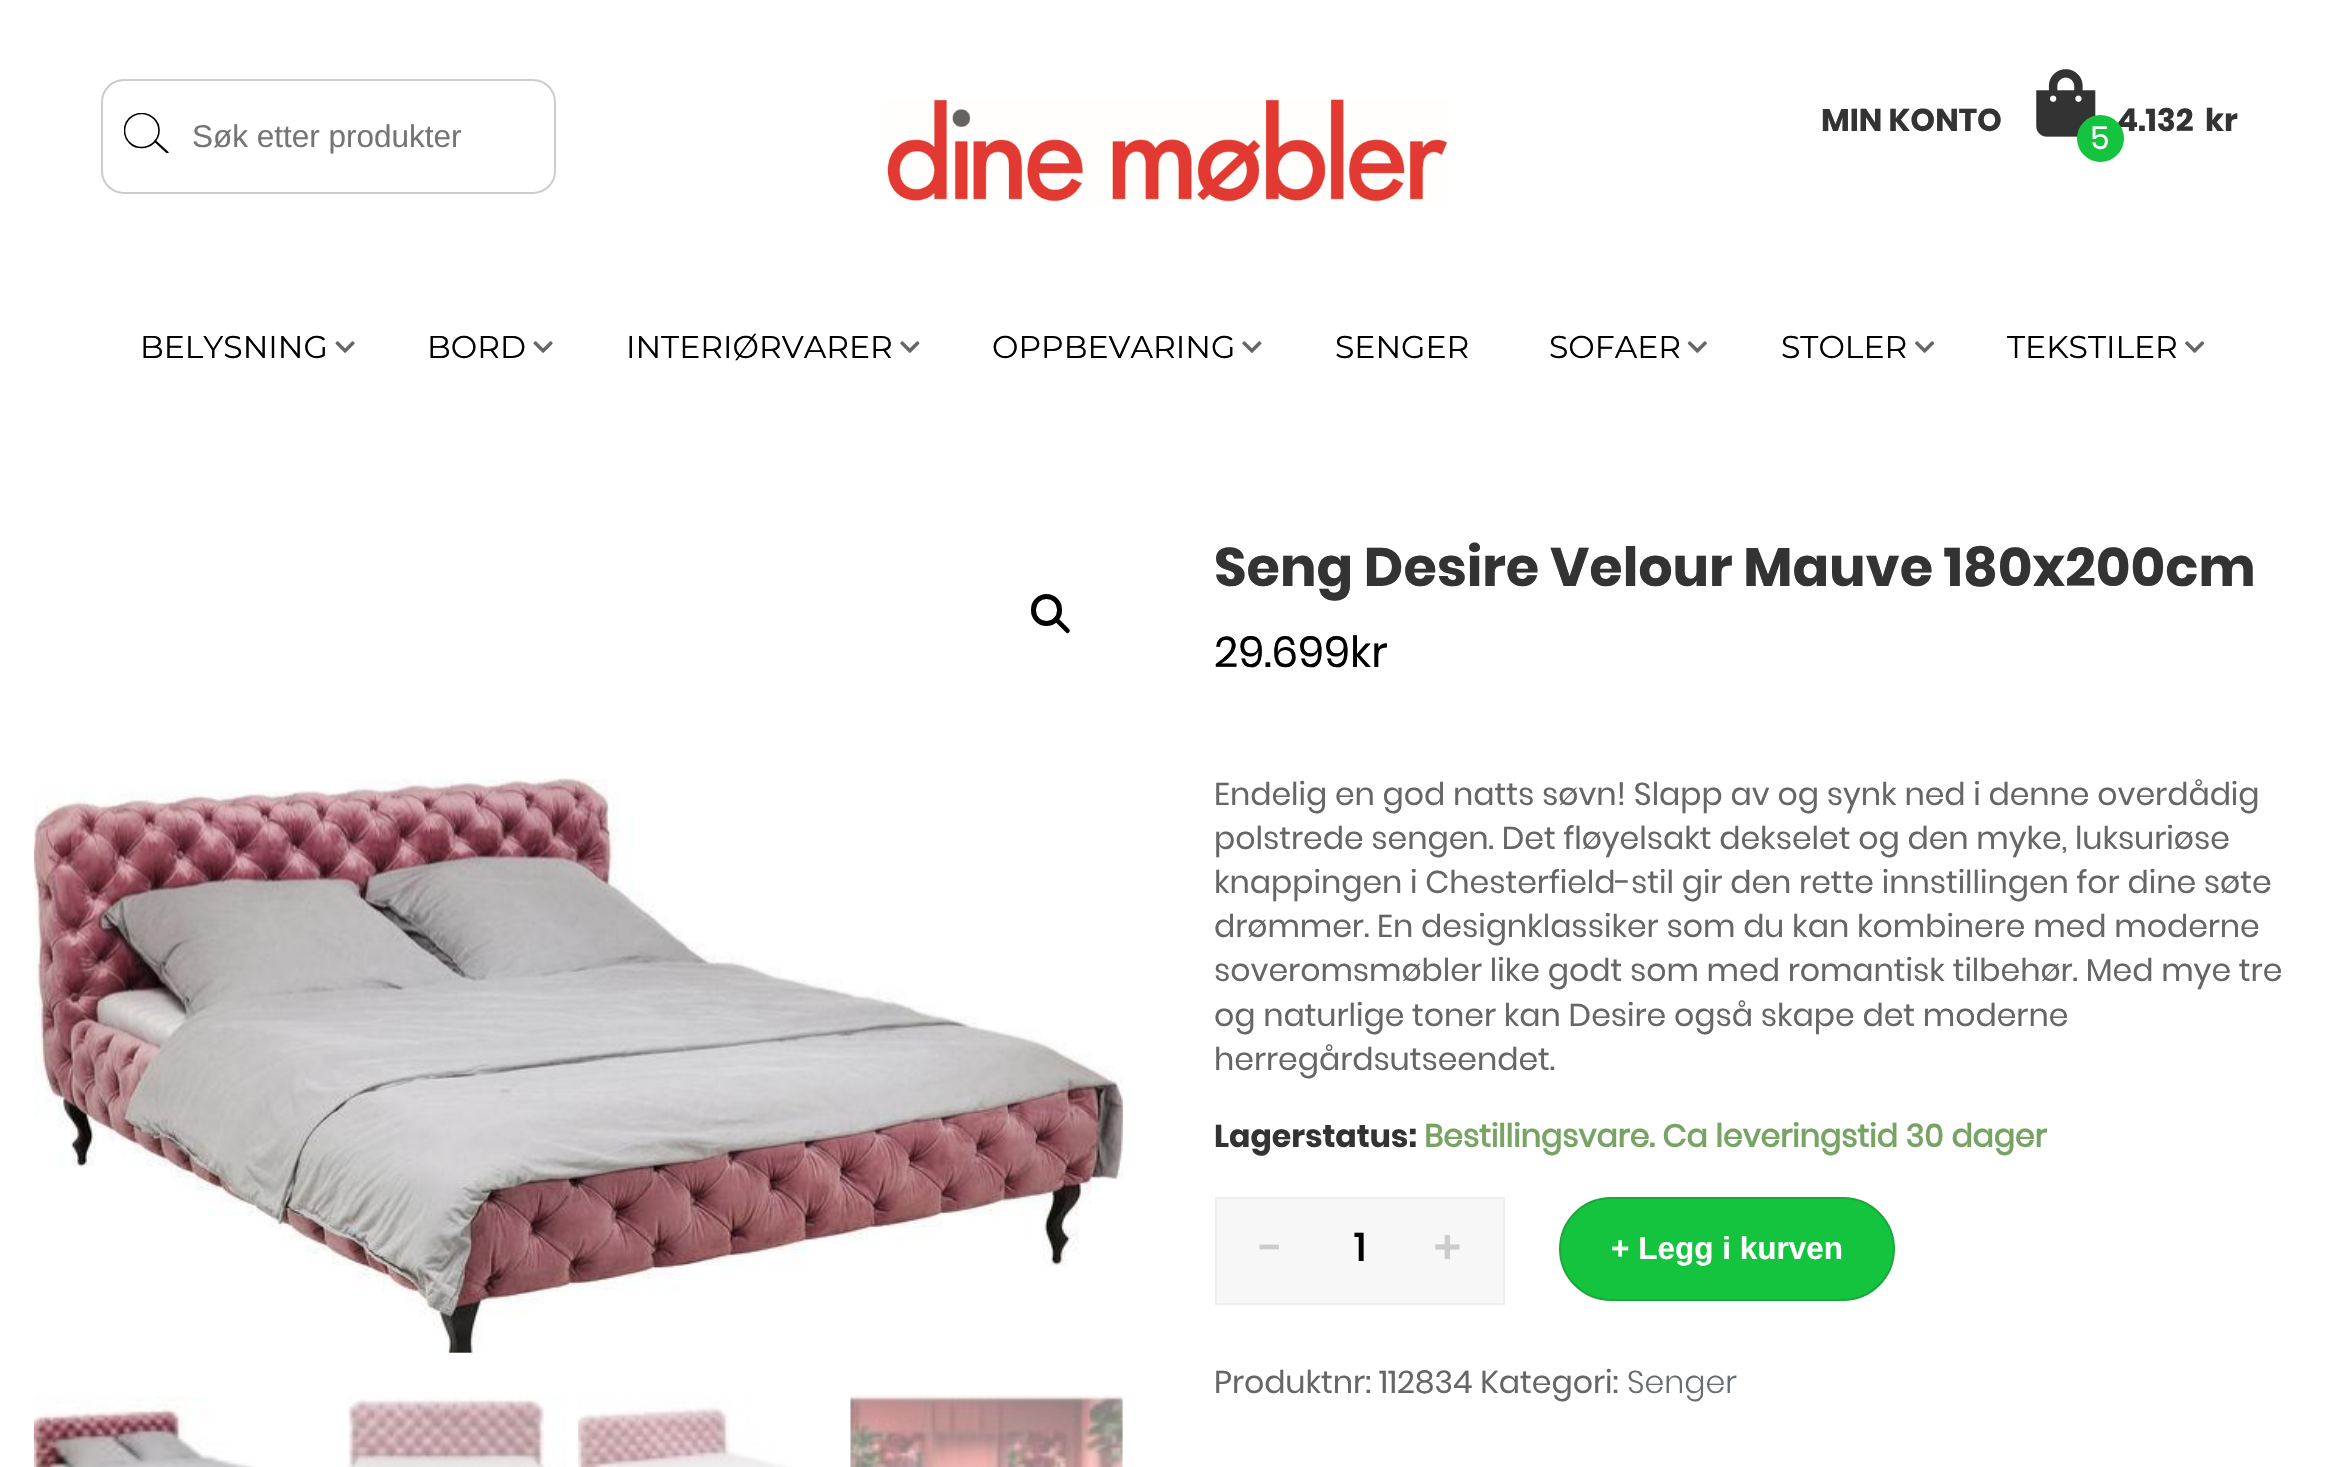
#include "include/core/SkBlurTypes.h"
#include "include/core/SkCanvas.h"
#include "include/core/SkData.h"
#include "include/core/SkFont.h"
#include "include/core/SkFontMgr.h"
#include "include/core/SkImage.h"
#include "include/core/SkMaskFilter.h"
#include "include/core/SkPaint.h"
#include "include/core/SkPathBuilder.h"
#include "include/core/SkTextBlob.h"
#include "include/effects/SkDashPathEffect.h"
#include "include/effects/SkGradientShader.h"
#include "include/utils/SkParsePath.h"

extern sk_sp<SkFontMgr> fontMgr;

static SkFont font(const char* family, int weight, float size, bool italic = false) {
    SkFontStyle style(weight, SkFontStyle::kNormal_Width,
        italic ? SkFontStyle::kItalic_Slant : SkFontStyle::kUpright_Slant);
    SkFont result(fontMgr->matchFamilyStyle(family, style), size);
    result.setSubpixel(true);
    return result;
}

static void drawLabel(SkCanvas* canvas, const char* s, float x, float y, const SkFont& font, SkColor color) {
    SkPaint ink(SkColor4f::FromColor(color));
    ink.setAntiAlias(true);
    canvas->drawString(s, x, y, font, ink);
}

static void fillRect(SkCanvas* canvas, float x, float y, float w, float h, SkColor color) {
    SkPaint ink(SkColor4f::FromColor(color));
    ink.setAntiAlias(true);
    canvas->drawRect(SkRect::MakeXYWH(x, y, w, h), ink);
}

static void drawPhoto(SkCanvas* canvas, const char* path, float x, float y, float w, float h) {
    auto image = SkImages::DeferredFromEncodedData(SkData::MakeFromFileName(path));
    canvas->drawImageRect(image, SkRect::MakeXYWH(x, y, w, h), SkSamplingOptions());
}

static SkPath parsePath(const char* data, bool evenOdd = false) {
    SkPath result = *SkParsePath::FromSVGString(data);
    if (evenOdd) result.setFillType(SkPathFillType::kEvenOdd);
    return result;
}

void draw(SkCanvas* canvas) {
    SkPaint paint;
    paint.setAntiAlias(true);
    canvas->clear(0xFFFFFFFF);
    paint.setStroke(true);
    paint.setStrokeWidth(2);
    paint.setColor(0xFFCCCCCC);
    canvas->drawRoundRect(SkRect::MakeXYWH(102, 80, 453, 113), 22, 22, paint);
    canvas->save();
    canvas->clipRect(SkRect::MakeXYWH(124, 113, 45, 40));
    paint.setStrokeWidth(1.6f);
    paint.setStrokeCap(SkPaint::kRound_Cap);
    paint.setStrokeJoin(SkPaint::kRound_Join);
    paint.setColor(0xFF000000);
    canvas->drawPath(parsePath("M159 130.5C159 140 151 147.5 141.5 147.5C132 147.5 124.5 140 124.5 130.5C124.5 121 132 113.5 141.5 113.5C151 113.5 159 121 159 130.5Z"), paint);
    paint.setStrokeWidth(2.3f);
    canvas->drawPath(parsePath("M155.5 141.5L167.5 152.5"), paint);
    canvas->restore();
    SkFont font1 = font("Liberation Sans", 400, 31.5f);
    drawLabel(canvas, "Søk etter produkter", 192, 147, font1, 0xFF757575);
    drawPhoto(canvas, "assets/img1.png", 886, 98, 562, 104);
    SkFont font2 = font("Poppins", 700, 31.5f);
    drawLabel(canvas, "MIN KONTO", 1821, 131, font2, 0xFF333333);
    drawPhoto(canvas, "assets/img2.png", 2036, 69, 60, 68);
    drawLabel(canvas, "4.132", 2117, 131, font2, 0xFF333333);
    drawLabel(canvas, "kr", 2205, 131, font2, 0xFF333333);
    paint.setStroke(false);
    paint.setColor(0xFF14C33E);
    canvas->drawCircle(2100.5f, 138.5f, 23.5f, paint);
    SkFont font3 = font("Poppins", 400, 31.5f);
    drawLabel(canvas, "5", 2090, 149, font3, 0xFFFFFFFF);
    SkFont font4 = font("Montserrat", 400, 31.5f);
    drawLabel(canvas, "BELYSNING", 140, 358, font4, 0xFF000000);
    drawPhoto(canvas, "assets/img3.png", 335, 341, 20, 12);
    drawLabel(canvas, "BORD", 427, 358, font4, 0xFF000000);
    drawPhoto(canvas, "assets/img3.png", 533, 341, 20, 12);
    drawLabel(canvas, "INTERIØRVARER", 626, 358, font4, 0xFF000000);
    drawPhoto(canvas, "assets/img4.png", 900, 341, 20, 12);
    drawLabel(canvas, "OPPBEVARING", 992, 358, font4, 0xFF000000);
    drawPhoto(canvas, "assets/img4.png", 1242, 341, 20, 12);
    drawLabel(canvas, "SENGER", 1335, 358, font4, 0xFF000000);
    drawLabel(canvas, "SOFAER", 1549, 358, font4, 0xFF000000);
    drawPhoto(canvas, "assets/img5.png", 1687, 341, 20, 12);
    drawLabel(canvas, "STOLER", 1781, 358, font4, 0xFF000000);
    drawPhoto(canvas, "assets/img6.png", 1915, 341, 20, 12);
    drawLabel(canvas, "TEKSTILER", 2007, 358, font4, 0xFF000000);
    drawPhoto(canvas, "assets/img6.png", 2185, 341, 20, 12);
    paint.setStroke(true);
    paint.setStrokeWidth(5);
    paint.setStrokeCap(SkPaint::kButt_Cap);
    paint.setStrokeJoin(SkPaint::kMiter_Join);
    paint.setColor(0xFF000000);
    canvas->drawRoundRect(SkRect::MakeXYWH(1033.5f, 596.5f, 26, 27), 13, 13, paint);
    paint.setStroke(false);
    canvas->drawPath(parsePath("M1056.5 619.5C1057 619 1058.5 619 1059.5 619.5L1069 629C1070 630 1070 631.5 1069 632.5C1068 633.5 1067 633.5 1066 632.5L1056.5 623C1055.5 622 1055.5 620.5 1056.5 619.5Z"), paint);
    drawPhoto(canvas, "assets/img7.png", 34, 778, 1089, 575);
    drawPhoto(canvas, "assets/img8.png", 33, 1396, 223, 71);
    drawPhoto(canvas, "assets/img9.png", 346, 1352, 221, 115);
    drawPhoto(canvas, "assets/img10.png", 578, 1397, 214, 70);
    drawPhoto(canvas, "assets/img11.png", 850, 1395, 273, 72);
    SkFont font5 = font("Poppins", 700, 54);
    drawLabel(canvas, "Seng Desire Velour Mauve 180x200cm", 1214, 586, font5, 0xFF333333);
    SkFont font6 = font("Poppins", 400, 42.75f);
    drawLabel(canvas, "29.699kr", 1214, 667, font6, 0xFF000000);
    drawLabel(canvas, "Endelig en god natts søvn! Slapp av og synk ned i denne overdådig", 1214, 805, font3, 0xFF666666);
    drawLabel(canvas, "polstrede sengen. Det fløyelsakt dekselet og den myke, luksuriøse", 1214, 849, font3, 0xFF666666);
    drawLabel(canvas, "knappingen i Chesterfield-stil gir den rette innstillingen for dine søte", 1214, 893, font3, 0xFF666666);
    drawLabel(canvas, "drømmer. En designklassiker som du kan kombinere med moderne", 1214, 937, font3, 0xFF666666);
    drawLabel(canvas, "soveromsmøbler like godt som med romantisk tilbehør. Med mye tre", 1214, 981, font3, 0xFF666666);
    drawLabel(canvas, "og naturlige toner kan Desire også skape det moderne", 1214, 1026, font3, 0xFF666666);
    drawLabel(canvas, "herregårdsutseendet.", 1214, 1070, font3, 0xFF666666);
    drawLabel(canvas, "Lagerstatus:", 1214, 1147, font2, 0xFF333333);
    SkFont font7 = font("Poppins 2", 700, 31.5f);
    drawLabel(canvas, "Bestillingsvare. Ca leveringstid 30 dager", 1424, 1147, font7, 0xFF77A464);
    fillRect(canvas, 1215, 1197, 290, 2, 0xFFEEEEEE);
    fillRect(canvas, 1215, 1303, 178, 2, 0xFFEEEEEE);
    fillRect(canvas, 1215, 1197, 2, 108, 0xFFEEEEEE);
    fillRect(canvas, 1217, 1199, 286, 104, 0xFFF7F7F7);
    SkFont font8 = font("Poppins", 500, 47);
    drawLabel(canvas, "-", 1260, 1264, font8, 0xFFCCCCCC);
    SkFont font9 = font("Poppins", 500, 40);
    drawLabel(canvas, "1", 1354, 1261, font9, 0xFF000000);
    fillRect(canvas, 1503, 1197, 2, 108, 0xFFEEEEEE);
    fillRect(canvas, 1393, 1303, 112, 2, 0xFFEEEEEE);
    drawLabel(canvas, "+", 1434, 1264, font8, 0xFFCCCCCC);
    paint.setColor(0xFF14C33E);
    canvas->drawRoundRect(SkRect::MakeXYWH(1560, 1198, 334, 102), 51, 51, paint);
    paint.setStroke(true);
    paint.setStrokeWidth(2);
    paint.setColor(0xFF1AA73B);
    canvas->drawRoundRect(SkRect::MakeXYWH(1560, 1198, 334, 102), 51, 51, paint);
    SkFont font10 = font("Liberation Sans", 700, 31.5f);
    drawLabel(canvas, "+ Legg i kurven", 1611, 1259, font10, 0xFFFFFFFF);
    drawLabel(canvas, "Produktnr: 112834 Kategori:", 1214, 1393, font3, 0xFF666666);
    SkFont font11 = font("Poppins", 300, 31.5f);
    drawLabel(canvas, "Senger", 1627, 1393, font11, 0xFF666C72);
}
